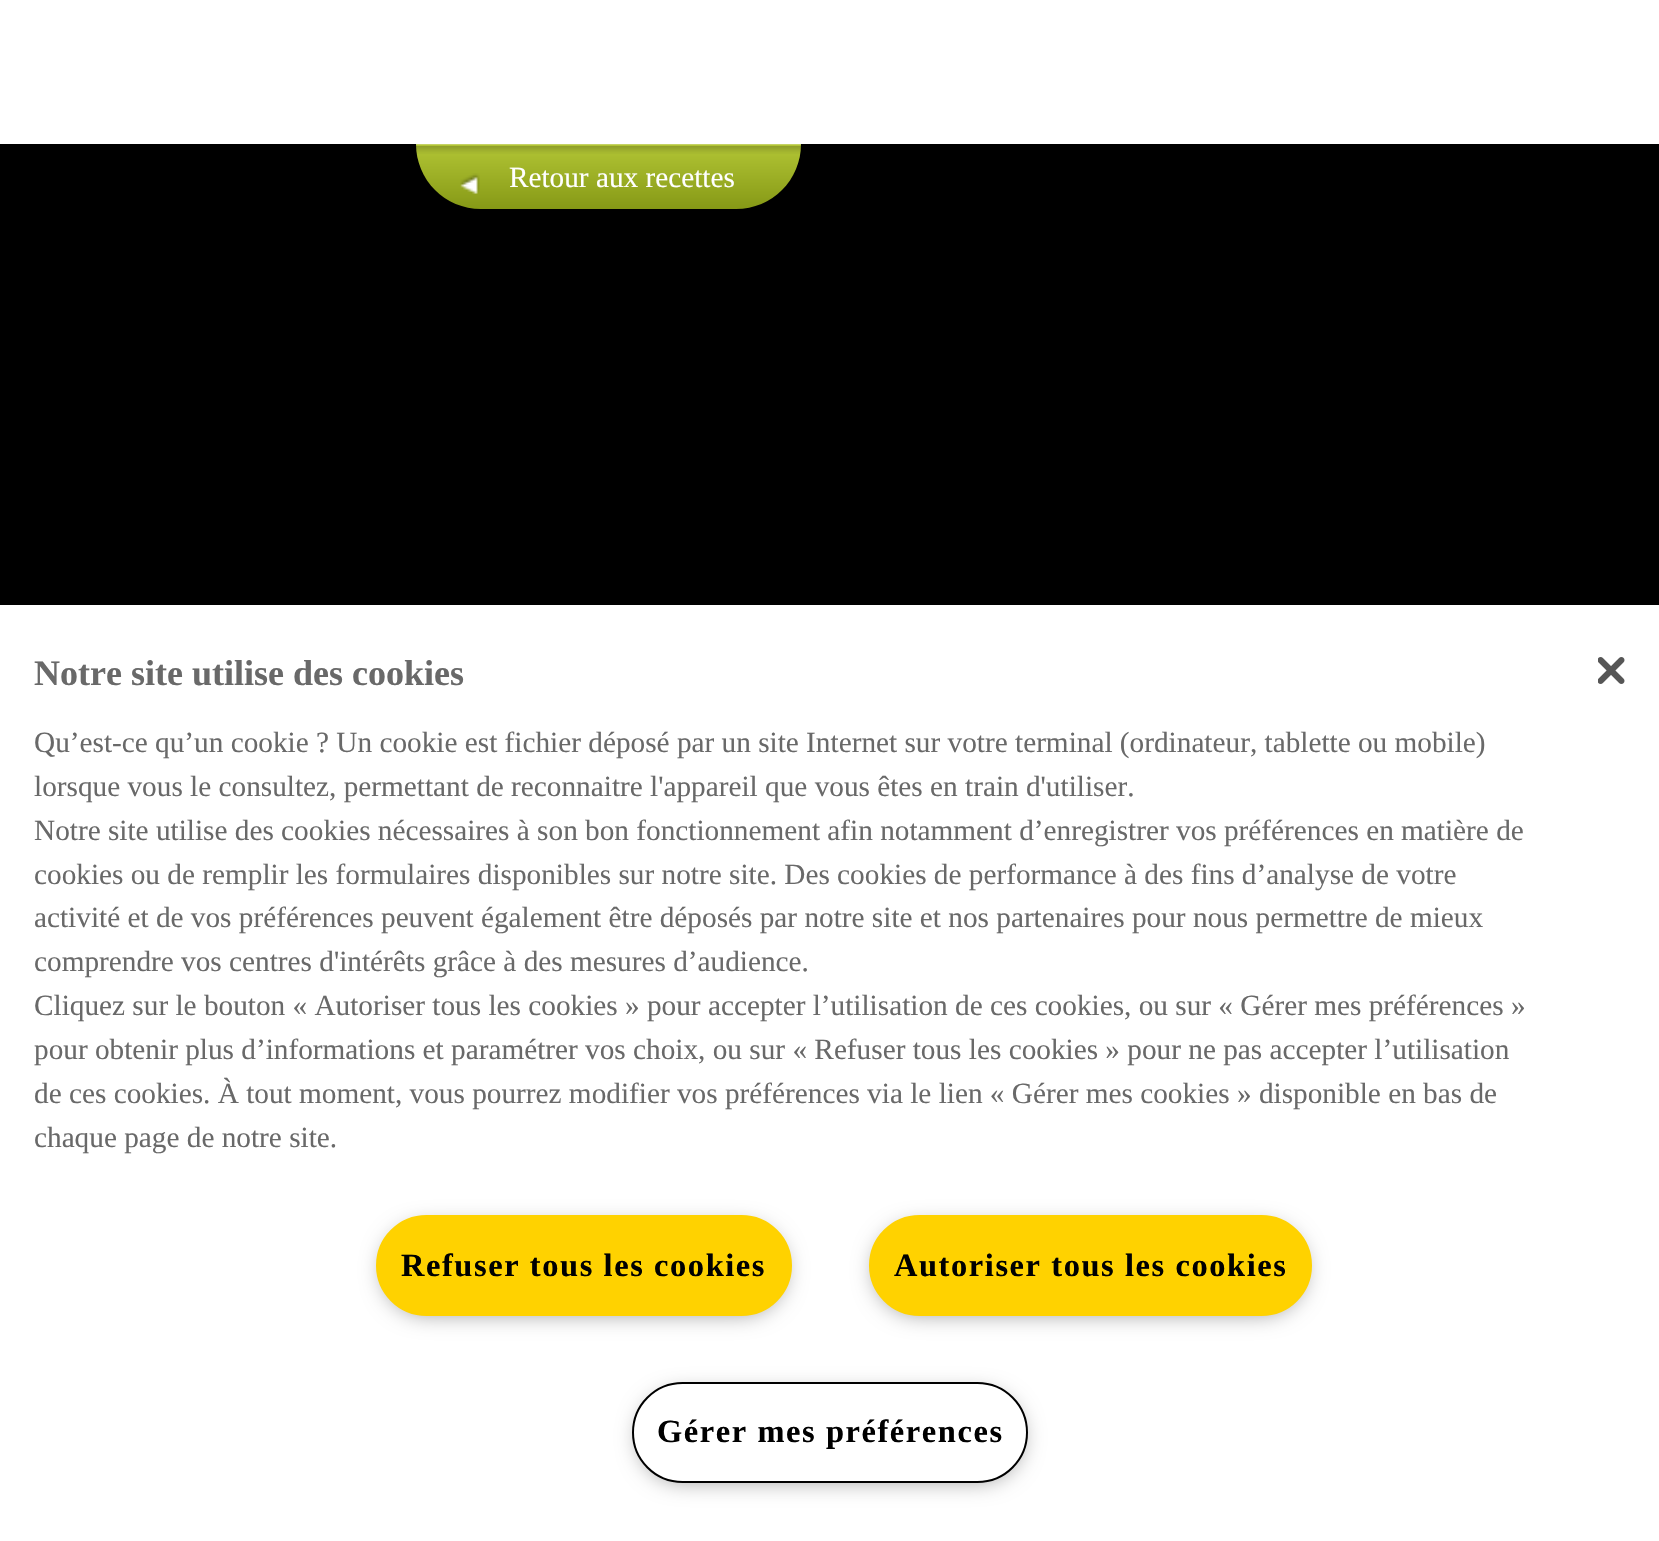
#include "include/core/SkBlurTypes.h"
#include "include/core/SkCanvas.h"
#include "include/core/SkData.h"
#include "include/core/SkFont.h"
#include "include/core/SkFontMgr.h"
#include "include/core/SkImage.h"
#include "include/core/SkMaskFilter.h"
#include "include/core/SkPaint.h"
#include "include/core/SkPathBuilder.h"
#include "include/core/SkTextBlob.h"
#include "include/effects/SkDashPathEffect.h"
#include "include/effects/SkGradientShader.h"
#include "include/utils/SkParsePath.h"

extern sk_sp<SkFontMgr> fontMgr;

static SkFont font(const char* family, int weight, float size, bool italic = false) {
    SkFontStyle style(weight, SkFontStyle::kNormal_Width,
        italic ? SkFontStyle::kItalic_Slant : SkFontStyle::kUpright_Slant);
    SkFont result(fontMgr->matchFamilyStyle(family, style), size);
    result.setSubpixel(true);
    return result;
}

static void drawLabel(SkCanvas* canvas, const char* s, float x, float y, const SkFont& font, SkColor color) {
    SkPaint ink(SkColor4f::FromColor(color));
    ink.setAntiAlias(true);
    canvas->drawString(s, x, y, font, ink);
}

static void drawTracked(SkCanvas* canvas, const char* s, float x, float y, const SkFont& font, const SkPaint& ink, float letter, float word) {
    std::vector<SkGlyphID> glyphs(font.countText(s, strlen(s), SkTextEncoding::kUTF8));
    std::vector<float> xs(glyphs.size());
    font.textToGlyphs(s, strlen(s), SkTextEncoding::kUTF8, glyphs);
    font.getXPos(glyphs, xs, x);
    float extra = 0;
    for (size_t i = 0; i < glyphs.size(); i++) {
        xs[i] += extra;
        extra += letter + word * (glyphs[i] == font.unicharToGlyph(' '));
    }
    canvas->drawTextBlob(SkTextBlob::MakeFromPosHGlyphs(glyphs, xs, y, font), 0, 0, ink);
}

static void fillRect(SkCanvas* canvas, float x, float y, float w, float h, SkColor color) {
    SkPaint ink(SkColor4f::FromColor(color));
    ink.setAntiAlias(true);
    canvas->drawRect(SkRect::MakeXYWH(x, y, w, h), ink);
}

static void drawPhoto(SkCanvas* canvas, const char* path, float x, float y, float w, float h) {
    auto image = SkImages::DeferredFromEncodedData(SkData::MakeFromFileName(path));
    canvas->drawImageRect(image, SkRect::MakeXYWH(x, y, w, h), SkSamplingOptions());
}

static SkPath parsePath(const char* data, bool evenOdd = false) {
    SkPath result = *SkParsePath::FromSVGString(data);
    if (evenOdd) result.setFillType(SkPathFillType::kEvenOdd);
    return result;
}

void draw(SkCanvas* canvas) {
    SkPaint paint;
    paint.setAntiAlias(true);
    canvas->clear(0xFFFFFFFF);
    fillRect(canvas, 0, 144, 1659, 461, 0xFF000000);
    {
        const SkColor colors[] = {0xFFFFFFFF, 0xFFB2C535, 0xFF869916};
        const float stops[] = {0, 0.01f, 1};
        const SkPoint ends[] = {{609, 144}, {609, 209}};
        paint.setShader(SkGradientShader::MakeLinear(ends, colors, stops, 3, SkTileMode::kClamp));
        paint.setAlpha(255);
    }
    canvas->drawPath(parsePath("M416 144H801C801 180 772 209 736 209H481C445 209 416 180 416 144Z"), paint);
    canvas->save();
    canvas->clipRect(SkRect::MakeXYWH(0, 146, 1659, 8));
    paint.setShader(nullptr);
    paint.setColor(0x40000000);
    paint.setMaskFilter(SkMaskFilter::MakeBlur(kNormal_SkBlurStyle, 3.5f));
    canvas->drawRect(SkRect::MakeXYWH(0, 2, 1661, 147), paint);
    paint.setMaskFilter(nullptr);
    canvas->restore();
    drawPhoto(canvas, "assets/img1.png", 460, 173, 20, 21);
    SkFont font1 = font("Liberation Serif", 400, 29.25f);
    drawLabel(canvas, "Retour aux recettes", 509, 187, font1, 0xFFFFFFFF);
    SkFont font2 = font("Liberation Serif", 700, 36);
    drawLabel(canvas, "Notre site utilise des cookies", 34, 685, font2, 0xFF696969);
    SkFont font3 = font("Liberation Serif", 400, 29.27f);
    drawLabel(canvas, "Qu’est-ce qu’un cookie ? Un cookie est fichier déposé par un site Internet sur votre terminal (ordinateur, tablette ou mobile)", 34, 752, font3, 0xFF696969);
    drawLabel(canvas, "lorsque vous le consultez, permettant de reconnaitre l'appareil que vous êtes en train d'utiliser.", 34, 796, font3, 0xFF696969);
    drawLabel(canvas, "Notre site utilise des cookies nécessaires à son bon fonctionnement afin notamment d’enregistrer vos préférences en matière de", 34, 840, font3, 0xFF696969);
    drawLabel(canvas, "cookies ou de remplir les formulaires disponibles sur notre site. Des cookies de performance à des fins d’analyse de votre", 34, 884, font3, 0xFF696969);
    drawLabel(canvas, "activité et de vos préférences peuvent également être déposés par notre site et nos partenaires pour nous permettre de mieux", 34, 927, font3, 0xFF696969);
    drawLabel(canvas, "comprendre vos centres d'intérêts grâce à des mesures d’audience.", 34, 971, font3, 0xFF696969);
    drawLabel(canvas, "Cliquez sur le bouton « Autoriser tous les cookies » pour accepter l’utilisation de ces cookies, ou sur « Gérer mes préférences »", 34, 1015, font3, 0xFF696969);
    drawLabel(canvas, "pour obtenir plus d’informations et paramétrer vos choix, ou sur « Refuser tous les cookies » pour ne pas accepter l’utilisation", 34, 1059, font3, 0xFF696969);
    drawLabel(canvas, "de ces cookies. À tout moment, vous pourrez modifier vos préférences via le lien « Gérer mes cookies » disponible en bas de", 34, 1103, font3, 0xFF696969);
    drawLabel(canvas, "chaque page de notre site.", 34, 1147, font3, 0xFF696969);
    paint.setColor(0xFF999999);
    paint.setMaskFilter(SkMaskFilter::MakeBlur(kNormal_SkBlurStyle, 11));
    canvas->drawRoundRect(SkRect::MakeXYWH(383, 1226, 402, 88), 44, 44, paint);
    paint.setMaskFilter(nullptr);
    paint.setColor(0xFFFFD200);
    canvas->drawRoundRect(SkRect::MakeXYWH(377, 1216, 414, 99), 49.5f, 49.5f, paint);
    paint.setStroke(true);
    paint.setStrokeWidth(2);
    canvas->drawRoundRect(SkRect::MakeXYWH(377, 1216, 414, 99), 49.5f, 49.5f, paint);
    SkFont font4 = font("Liberation Serif", 700, 32.4f);
    paint.setStroke(false);
    paint.setColor(0xFF000000);
    drawTracked(canvas, "Refuser tous les cookies", 401, 1276, font4, paint, 1.6f, 0);
    paint.setColor(0xFF999999);
    paint.setMaskFilter(SkMaskFilter::MakeBlur(kNormal_SkBlurStyle, 11));
    canvas->drawRoundRect(SkRect::MakeXYWH(875, 1226, 430, 88), 44, 44, paint);
    paint.setMaskFilter(nullptr);
    paint.setColor(0xFFFFD200);
    canvas->drawRoundRect(SkRect::MakeXYWH(870, 1216, 441, 99), 49.5f, 49.5f, paint);
    paint.setStroke(true);
    canvas->drawRoundRect(SkRect::MakeXYWH(870, 1216, 441, 99), 49.5f, 49.5f, paint);
    paint.setStroke(false);
    paint.setColor(0xFF000000);
    drawTracked(canvas, "Autoriser tous les cookies", 894, 1276, font4, paint, 1.6f, 0);
    paint.setColor(0xFF999999);
    paint.setMaskFilter(SkMaskFilter::MakeBlur(kNormal_SkBlurStyle, 11));
    canvas->drawRoundRect(SkRect::MakeXYWH(639, 1393, 383, 88), 44, 44, paint);
    paint.setMaskFilter(nullptr);
    paint.setColor(0xFFFFFFFF);
    canvas->drawRoundRect(SkRect::MakeXYWH(633, 1383, 394, 99), 49.5f, 49.5f, paint);
    paint.setStroke(true);
    paint.setColor(0xFF000000);
    canvas->drawRoundRect(SkRect::MakeXYWH(633, 1383, 394, 99), 49.5f, 49.5f, paint);
    paint.setStroke(false);
    drawTracked(canvas, "Gérer mes préférences", 657, 1442, font4, paint, 1.6f, 0);
    drawPhoto(canvas, "assets/img2.png", 1598, 657, 27, 27);
}
